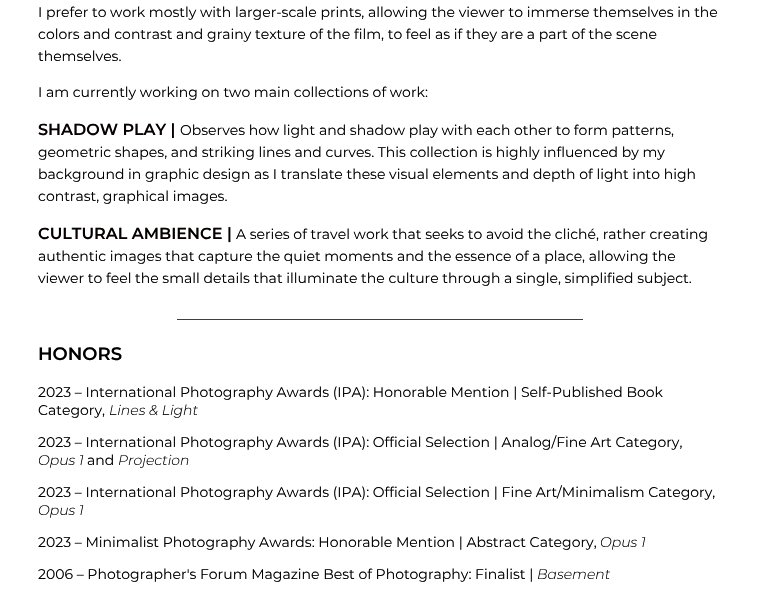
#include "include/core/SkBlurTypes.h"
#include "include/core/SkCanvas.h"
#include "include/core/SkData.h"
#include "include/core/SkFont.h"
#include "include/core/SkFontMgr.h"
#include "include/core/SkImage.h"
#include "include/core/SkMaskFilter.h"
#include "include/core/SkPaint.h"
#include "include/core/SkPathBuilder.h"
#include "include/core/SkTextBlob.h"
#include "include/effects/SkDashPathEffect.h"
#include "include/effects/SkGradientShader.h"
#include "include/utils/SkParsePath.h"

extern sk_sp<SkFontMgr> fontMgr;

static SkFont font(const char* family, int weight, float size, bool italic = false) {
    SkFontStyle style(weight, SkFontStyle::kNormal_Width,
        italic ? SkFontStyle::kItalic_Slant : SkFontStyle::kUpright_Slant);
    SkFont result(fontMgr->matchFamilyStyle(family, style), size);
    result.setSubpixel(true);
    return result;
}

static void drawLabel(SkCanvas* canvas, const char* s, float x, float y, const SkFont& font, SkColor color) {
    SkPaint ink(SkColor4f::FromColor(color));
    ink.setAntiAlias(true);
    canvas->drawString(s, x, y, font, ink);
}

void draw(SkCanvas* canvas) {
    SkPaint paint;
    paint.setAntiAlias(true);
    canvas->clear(0xFFFFFFFF);
    SkFont font1 = font("Montserrat", 400, 14);
    drawLabel(canvas, "I prefer to work mostly with larger-scale prints, allowing the viewer to immerse themselves in the", 38, 17, font1, 0xFF000000);
    drawLabel(canvas, "colors and contrast and grainy texture of the film, to feel as if they are a part of the scene", 38, 39, font1, 0xFF000000);
    drawLabel(canvas, "themselves.", 38, 61, font1, 0xFF000000);
    drawLabel(canvas, "I am currently working on two main collections of work:", 38, 97, font1, 0xFF000000);
    SkFont font2 = font("Montserrat", 600, 16);
    drawLabel(canvas, "SHADOW PLAY |", 38, 135, font2, 0xFF060000);
    drawLabel(canvas, "Observes how light and shadow play with each other to form patterns,", 180, 135, font1, 0xFF000000);
    drawLabel(canvas, "geometric shapes, and striking lines and curves. This collection is highly influenced by my", 38, 157, font1, 0xFF000000);
    drawLabel(canvas, "background in graphic design as I translate these visual elements and depth of light into high", 38, 179, font1, 0xFF000000);
    drawLabel(canvas, "contrast, graphical images.", 38, 201, font1, 0xFF000000);
    drawLabel(canvas, "CULTURAL AMBIENCE", 38, 239, font2, 0xFF060000);
    drawLabel(canvas, "|", 227, 239, font2, 0xFF060000);
    drawLabel(canvas, "A series of travel work that seeks to avoid the cliché, rather creating", 236, 239, font1, 0xFF000000);
    drawLabel(canvas, "authentic images that capture the quiet moments and the essence of a place, allowing the", 38, 261, font1, 0xFF000000);
    drawLabel(canvas, "viewer to feel the small details that illuminate the culture through a single, simplified subject.", 38, 283, font1, 0xFF000000);
    drawLabel(canvas, "__________________________________________________________", 177, 319, font1, 0xFF000000);
    SkFont font3 = font("Montserrat", 600, 18);
    drawLabel(canvas, "HONORS", 38, 360, font3, 0xFF000000);
    drawLabel(canvas, "2023 – International Photography Awards (IPA): Honorable Mention | Self-Published Book", 38, 397, font1, 0xFF000000);
    drawLabel(canvas, "Category,", 38, 415, font1, 0xFF000000);
    SkFont font4 = font("Montserrat", 300, 14, true);
    drawLabel(canvas, "Lines & Light", 109, 415, font4, 0xFF000000);
    drawLabel(canvas, "2023 – International Photography Awards (IPA): Official Selection | Analog/Fine Art Category,", 38, 447, font1, 0xFF000000);
    drawLabel(canvas, "Opus 1", 38, 465, font4, 0xFF000000);
    drawLabel(canvas, "and", 87, 465, font1, 0xFF000000);
    drawLabel(canvas, "Projection", 118, 465, font4, 0xFF000000);
    drawLabel(canvas, "2023 – International Photography Awards (IPA): Official Selection | Fine Art/Minimalism Category,", 38, 497, font1, 0xFF000000);
    drawLabel(canvas, "Opus 1", 38, 515, font4, 0xFF000000);
    drawLabel(canvas, "2023 – Minimalist Photography Awards: Honorable Mention | Abstract Category,", 38, 547, font1, 0xFF000000);
    drawLabel(canvas, "Opus 1", 600, 547, font4, 0xFF000000);
    drawLabel(canvas, "2006 – Photographer's Forum Magazine Best of Photography: Finalist |", 38, 579, font1, 0xFF000000);
    drawLabel(canvas, "Basement", 537, 579, font4, 0xFF000000);
}
